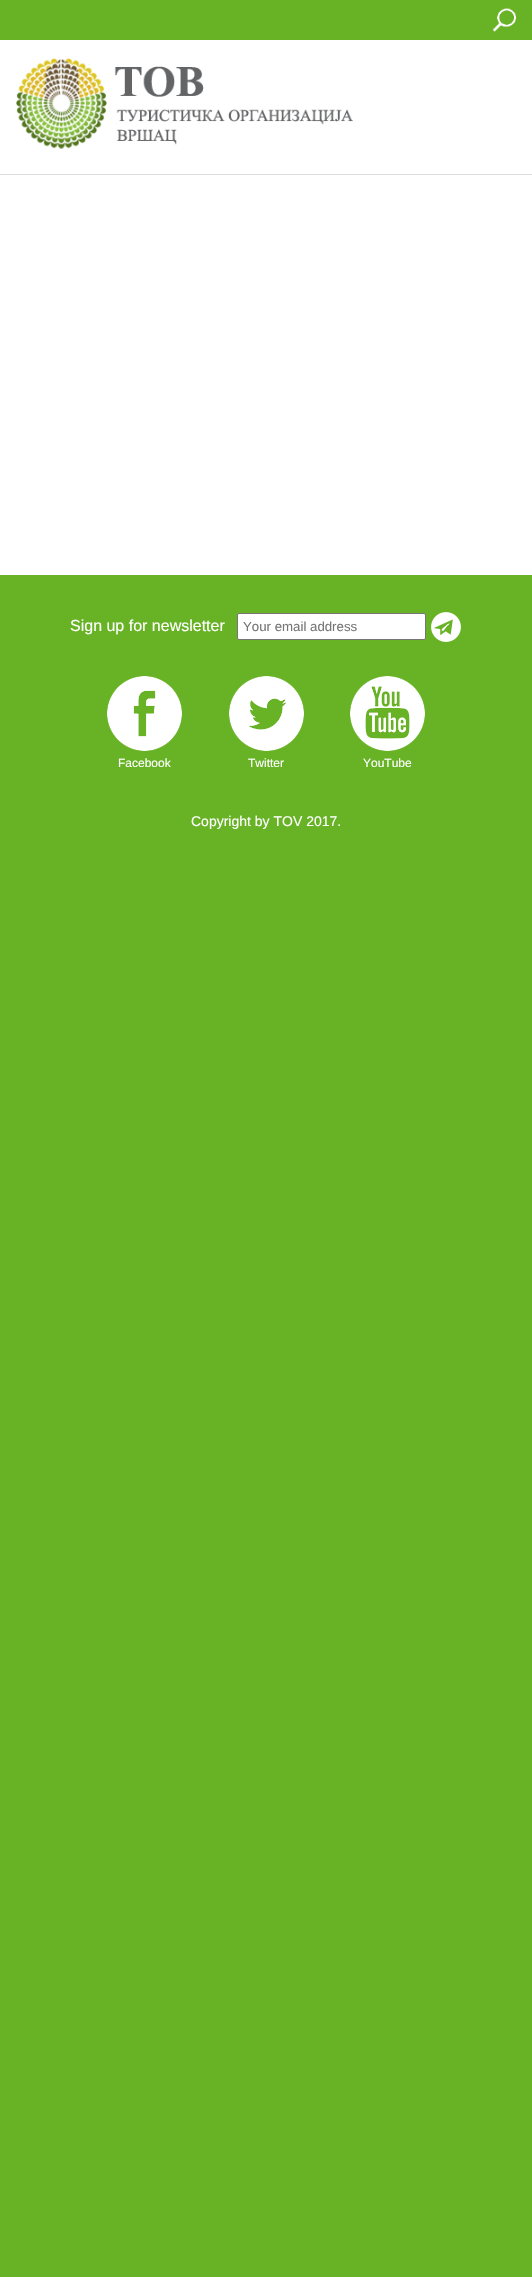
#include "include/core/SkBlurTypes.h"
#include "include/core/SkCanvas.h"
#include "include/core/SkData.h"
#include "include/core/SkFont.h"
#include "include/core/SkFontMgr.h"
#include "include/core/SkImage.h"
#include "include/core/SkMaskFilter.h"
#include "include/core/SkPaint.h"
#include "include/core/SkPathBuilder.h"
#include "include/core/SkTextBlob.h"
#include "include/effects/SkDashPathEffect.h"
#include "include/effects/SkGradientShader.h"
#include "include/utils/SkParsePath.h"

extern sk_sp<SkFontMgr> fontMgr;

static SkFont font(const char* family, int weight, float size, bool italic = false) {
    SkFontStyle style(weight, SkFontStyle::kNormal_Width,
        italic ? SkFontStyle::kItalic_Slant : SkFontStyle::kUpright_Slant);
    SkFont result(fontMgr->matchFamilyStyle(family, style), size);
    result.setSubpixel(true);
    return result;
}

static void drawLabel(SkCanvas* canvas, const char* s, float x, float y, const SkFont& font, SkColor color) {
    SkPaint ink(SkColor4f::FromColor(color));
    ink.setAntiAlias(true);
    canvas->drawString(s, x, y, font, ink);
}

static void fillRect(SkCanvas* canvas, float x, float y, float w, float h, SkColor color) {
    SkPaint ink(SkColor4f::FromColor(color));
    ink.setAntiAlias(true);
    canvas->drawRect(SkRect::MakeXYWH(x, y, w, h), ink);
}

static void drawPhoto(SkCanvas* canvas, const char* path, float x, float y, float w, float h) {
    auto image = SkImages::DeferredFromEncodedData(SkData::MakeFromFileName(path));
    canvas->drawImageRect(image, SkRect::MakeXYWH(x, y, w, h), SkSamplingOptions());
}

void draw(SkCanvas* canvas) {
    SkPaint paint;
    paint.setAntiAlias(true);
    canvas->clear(0xFF68B226);
    drawPhoto(canvas, "assets/img1.png", 493, 8, 23, 24);
    fillRect(canvas, 0, 40, 532, 134, 0xFFFFFFFF);
    fillRect(canvas, 0, 174, 532, 1, 0xFFDDDDDD);
    drawPhoto(canvas, "assets/img2.png", 16, 58, 337, 91);
    fillRect(canvas, 0, 175, 532, 400, 0xFFFFFFFF);
    SkFont font1 = font("Liberation Sans", 400, 16);
    drawLabel(canvas, "Sign up for newsletter", 70, 631, font1, 0xFFFFFFFF);
    paint.setColor(0xFFFFFFFF);
    canvas->drawRoundRect(SkRect::MakeXYWH(237.5f, 613.5f, 188, 26), 1.5f, 1.5f, paint);
    paint.setStroke(true);
    paint.setStrokeWidth(1);
    paint.setColor(0xFF767676);
    canvas->drawRoundRect(SkRect::MakeXYWH(237.5f, 613.5f, 188, 26), 1.5f, 1.5f, paint);
    SkFont font2 = font("Liberation Sans", 400, 13.25f);
    drawLabel(canvas, "Your email address", 243, 631, font2, 0xFF757575);
    drawPhoto(canvas, "assets/img3.png", 431, 612, 30, 30);
    drawPhoto(canvas, "assets/img4.png", 107, 676, 75, 75);
    SkFont font3 = font("Liberation Sans", 400, 12);
    drawLabel(canvas, "Facebook", 118, 767, font3, 0xFFFFFFFF);
    drawPhoto(canvas, "assets/img5.png", 229, 676, 75, 75);
    drawLabel(canvas, "Twitter", 248, 767, font3, 0xFFFFFFFF);
    drawPhoto(canvas, "assets/img6.png", 350, 676, 75, 75);
    drawLabel(canvas, "YouTube", 363, 767, font3, 0xFFFFFFFF);
    SkFont font4 = font("Liberation Sans", 400, 14);
    drawLabel(canvas, "Copyright by TOV 2017.", 191, 826, font4, 0xFFFFFFFF);
}
